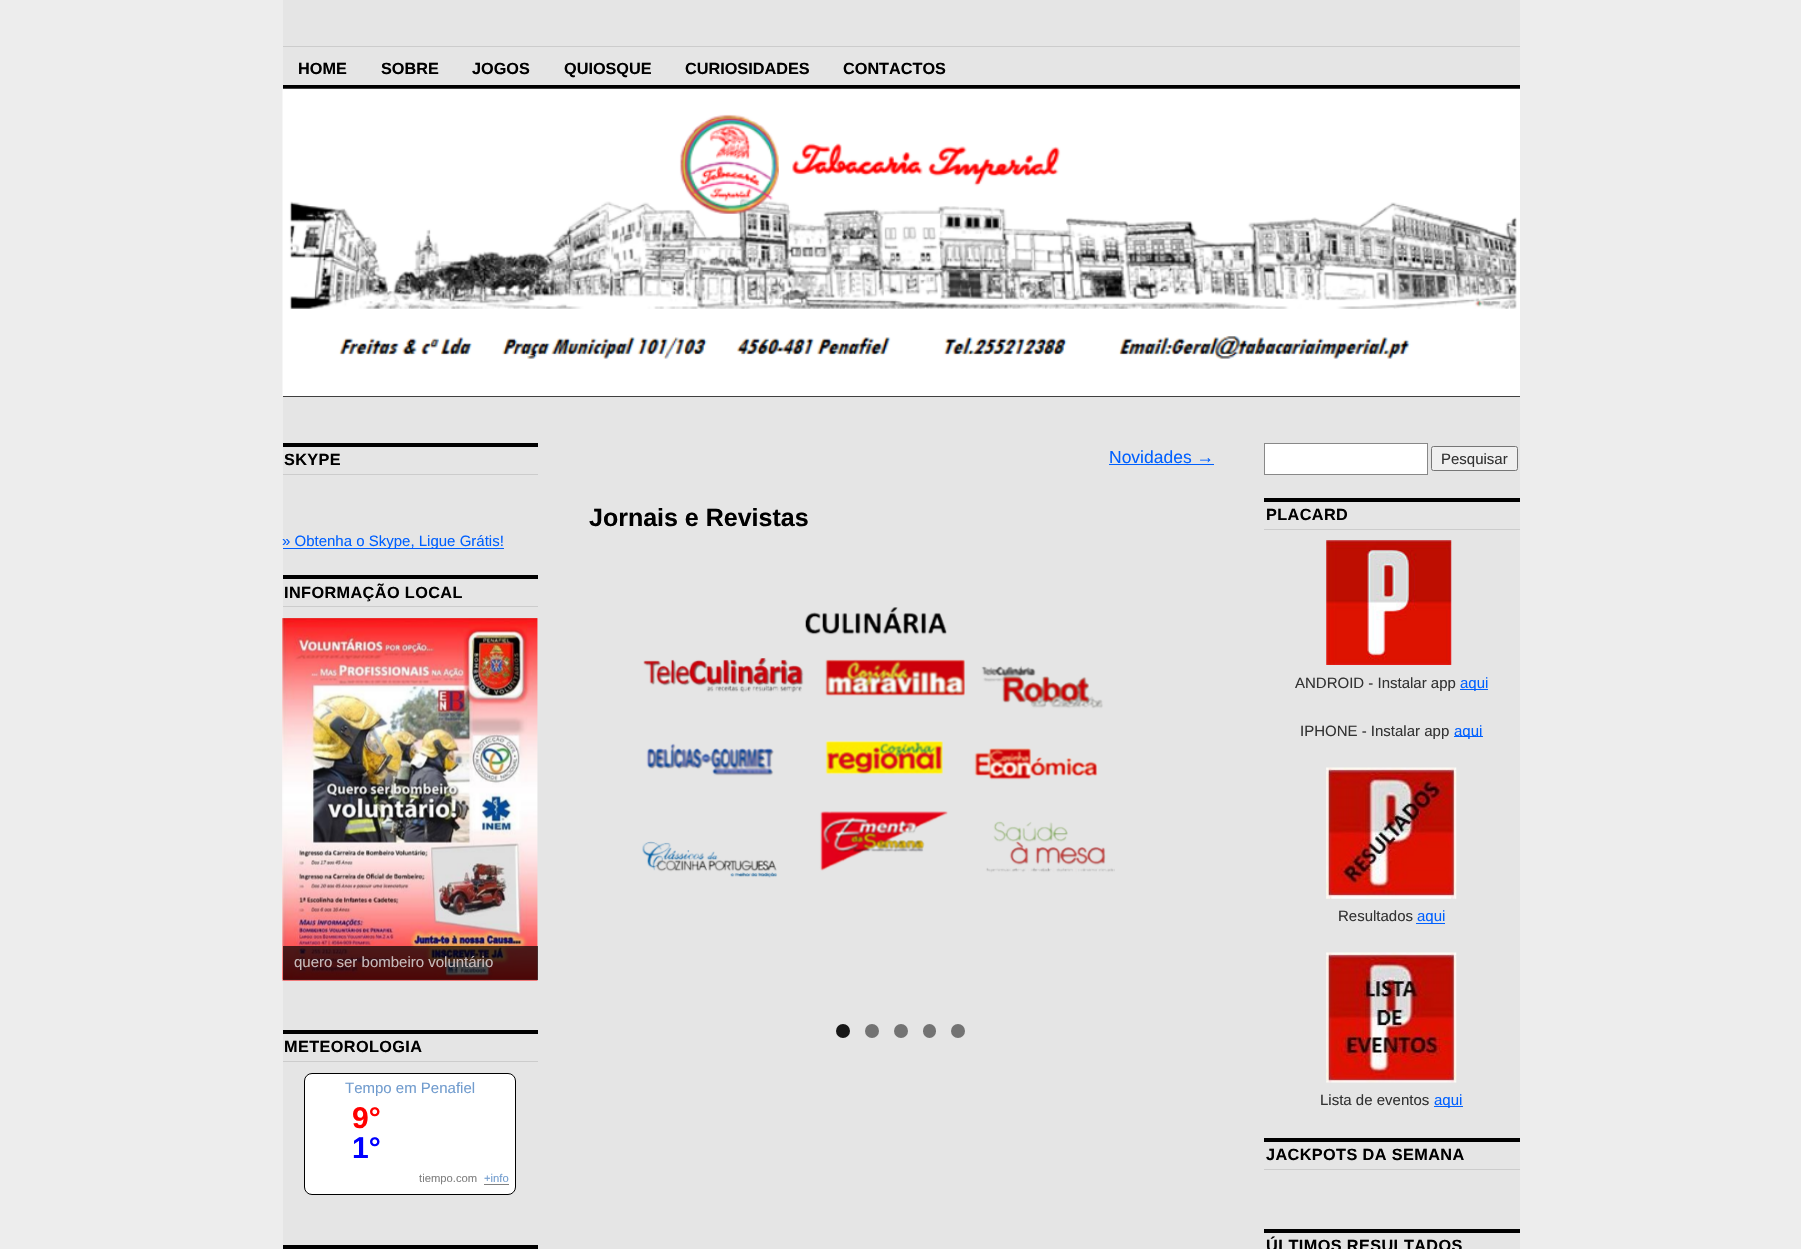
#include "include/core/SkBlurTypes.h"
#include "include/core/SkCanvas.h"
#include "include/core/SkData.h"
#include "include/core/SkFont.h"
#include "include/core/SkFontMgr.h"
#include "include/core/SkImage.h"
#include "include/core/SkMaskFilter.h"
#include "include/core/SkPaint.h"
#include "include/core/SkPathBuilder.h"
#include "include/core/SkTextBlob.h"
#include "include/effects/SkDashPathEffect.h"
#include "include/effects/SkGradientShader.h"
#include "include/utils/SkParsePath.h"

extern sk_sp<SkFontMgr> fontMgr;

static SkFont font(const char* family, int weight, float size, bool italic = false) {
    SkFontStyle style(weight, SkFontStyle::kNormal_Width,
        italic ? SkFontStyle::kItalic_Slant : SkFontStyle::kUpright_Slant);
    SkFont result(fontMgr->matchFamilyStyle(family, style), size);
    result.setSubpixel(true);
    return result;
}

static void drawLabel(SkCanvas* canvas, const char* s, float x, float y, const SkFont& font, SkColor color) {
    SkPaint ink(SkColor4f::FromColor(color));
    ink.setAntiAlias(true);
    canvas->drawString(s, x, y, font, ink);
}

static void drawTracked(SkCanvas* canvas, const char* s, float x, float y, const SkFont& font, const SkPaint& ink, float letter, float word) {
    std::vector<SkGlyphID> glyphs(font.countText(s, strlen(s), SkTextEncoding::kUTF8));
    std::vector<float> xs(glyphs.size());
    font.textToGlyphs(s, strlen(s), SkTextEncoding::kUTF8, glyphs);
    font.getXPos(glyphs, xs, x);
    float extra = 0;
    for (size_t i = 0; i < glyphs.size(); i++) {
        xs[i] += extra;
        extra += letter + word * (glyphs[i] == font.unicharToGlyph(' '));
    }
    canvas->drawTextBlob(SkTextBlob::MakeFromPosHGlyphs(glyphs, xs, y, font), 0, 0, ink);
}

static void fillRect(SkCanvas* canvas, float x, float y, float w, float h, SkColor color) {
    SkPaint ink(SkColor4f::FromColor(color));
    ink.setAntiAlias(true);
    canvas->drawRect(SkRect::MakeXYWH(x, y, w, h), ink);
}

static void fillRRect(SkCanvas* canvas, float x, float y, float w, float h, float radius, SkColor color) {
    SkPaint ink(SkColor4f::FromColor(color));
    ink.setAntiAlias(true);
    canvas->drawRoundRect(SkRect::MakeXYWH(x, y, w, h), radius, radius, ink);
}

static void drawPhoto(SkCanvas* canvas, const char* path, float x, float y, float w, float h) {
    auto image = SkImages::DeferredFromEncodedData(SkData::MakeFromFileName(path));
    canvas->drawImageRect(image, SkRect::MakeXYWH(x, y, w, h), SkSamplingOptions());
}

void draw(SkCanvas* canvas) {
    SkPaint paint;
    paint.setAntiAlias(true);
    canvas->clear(0xFFEDEDED);
    fillRect(canvas, 283, 0, 1237, 1249, 0xFFE5E5E5);
    fillRect(canvas, 283, 46, 1237, 1, 0xFFCCCCCC);
    SkFont font1 = font("Liberation Sans", 700, 16.25f);
    drawLabel(canvas, "HOME", 298, 74, font1, 0xFF000000);
    drawLabel(canvas, "SOBRE", 381, 74, font1, 0xFF000000);
    drawLabel(canvas, "JOGOS", 472, 74, font1, 0xFF000000);
    drawLabel(canvas, "QUIOSQUE", 564, 74, font1, 0xFF000000);
    drawLabel(canvas, "CURIOSIDADES", 685, 74, font1, 0xFF000000);
    drawLabel(canvas, "CONTACTOS", 843, 74, font1, 0xFF000000);
    fillRect(canvas, 283, 85, 1237, 4, 0xFF000000);
    fillRect(canvas, 283, 396, 1237, 1, 0xFF000000);
    drawPhoto(canvas, "assets/img1.png", 282, 88, 1238, 309);
    fillRect(canvas, 283, 443, 255, 4, 0xFF000000);
    fillRect(canvas, 283, 474, 255, 1, 0xFFCCCCCC);
    paint.setColor(0xFF000000);
    drawTracked(canvas, "SKYPE", 284, 465, font1, paint, 0.4f, 0);
    fillRect(canvas, 283, 548, 221, 1, 0xFF0060FF);
    SkFont font2 = font("Liberation Sans", 400, 15);
    drawLabel(canvas, "» Obtenha o Skype, Ligue Grátis!", 282, 546, font2, 0xFF0060FF);
    fillRect(canvas, 283, 575, 255, 4, 0xFF000000);
    fillRect(canvas, 283, 606, 255, 1, 0xFFCCCCCC);
    drawTracked(canvas, "INFORMAÇÃO LOCAL", 284, 598, font1, paint, 0.4f, 0);
    drawPhoto(canvas, "assets/img2.png", 282, 618, 256, 363);
    fillRect(canvas, 283, 946, 255, 34, 0xB3000000);
    drawLabel(canvas, "quero ser bombeiro voluntário", 294, 967, font2, 0xFFC7BABA);
    fillRect(canvas, 283, 1030, 255, 4, 0xFF000000);
    fillRect(canvas, 283, 1061, 255, 1, 0xFFCCCCCC);
    drawTracked(canvas, "METEOROLOGIA", 284, 1052, font1, paint, 0.4f, 0);
    paint.setColor(0xFFFFFFFF);
    canvas->drawRoundRect(SkRect::MakeXYWH(304.5f, 1073.5f, 211, 121), 7.5f, 7.5f, paint);
    paint.setStroke(true);
    paint.setStrokeWidth(1);
    paint.setColor(0xFF000000);
    canvas->drawRoundRect(SkRect::MakeXYWH(304.5f, 1073.5f, 211, 121), 7.5f, 7.5f, paint);
    drawLabel(canvas, "Tempo em Penafiel", 345, 1093, font2, 0xFF719CCE);
    SkFont font3 = font("Liberation Sans", 700, 30);
    drawLabel(canvas, "9°", 352, 1128, font3, 0xFFFF0000);
    drawLabel(canvas, "1°", 352, 1158, font3, 0xFF0000FF);
    SkFont font4 = font("Liberation Sans", 400, 11.25f);
    drawLabel(canvas, "tiempo.com", 419, 1182, font4, 0xFF808080);
    drawLabel(canvas, "+info", 484, 1182, font4, 0xFF719CCE);
    fillRect(canvas, 484, 1184, 25, 1, 0xFF808080);
    fillRect(canvas, 283, 1245, 255, 4, 0xFF000000);
    SkFont font5 = font("Liberation Sans", 400, 17.5f);
    drawLabel(canvas, "Novidades →", 1109, 463, font5, 0xFF0060FF);
    fillRect(canvas, 1109, 464, 105, 1, 0xFF0060FF);
    SkFont font6 = font("Liberation Sans", 700, 25);
    drawLabel(canvas, "Jornais e Revistas", 589, 526, font6, 0xFF000000);
    drawPhoto(canvas, "assets/img3.png", 642, 607, 473, 271);
    paint.setStroke(false);
    paint.setColor(0xFF171717);
    canvas->drawCircle(843, 1031, 7, paint);
    paint.setColor(0xFF737373);
    canvas->drawCircle(872, 1031, 7, paint);
    canvas->drawCircle(901, 1031, 7, paint);
    fillRRect(canvas, 923, 1024, 13, 14, 6.5f, 0xFF737373);
    canvas->drawCircle(958, 1031, 7, paint);
    paint.setColor(0xFFFFFFFF);
    canvas->drawRect(SkRect::MakeXYWH(1264.5f, 443.5f, 163, 31), paint);
    paint.setStroke(true);
    paint.setColor(0xFF888888);
    canvas->drawRect(SkRect::MakeXYWH(1264.5f, 443.5f, 163, 31), paint);
    paint.setStroke(false);
    paint.setColor(0xFFEFEFEF);
    canvas->drawRoundRect(SkRect::MakeXYWH(1431.5f, 446.5f, 86, 24), 2, 2, paint);
    paint.setStroke(true);
    paint.setColor(0xFF767676);
    canvas->drawRoundRect(SkRect::MakeXYWH(1431.5f, 446.5f, 86, 24), 2, 2, paint);
    drawLabel(canvas, "Pesquisar", 1441, 464, font2, 0xFF333333);
    fillRect(canvas, 1264, 498, 256, 4, 0xFF000000);
    fillRect(canvas, 1264, 529, 256, 1, 0xFFCCCCCC);
    paint.setStroke(false);
    paint.setColor(0xFF000000);
    drawTracked(canvas, "PLACARD", 1266, 520, font1, paint, 0.4f, 0);
    drawPhoto(canvas, "assets/img4.png", 1326, 540, 126, 125);
    drawLabel(canvas, "ANDROID - Instalar app", 1295, 688, font2, 0xFF333333);
    fillRect(canvas, 1460, 689, 28, 1, 0xFF0060FF);
    drawLabel(canvas, "aqui", 1460, 688, font2, 0xFF0060FF);
    drawLabel(canvas, "IPHONE - Instalar app", 1300, 736, font2, 0xFF333333);
    fillRect(canvas, 1454, 736, 29, 1, 0xFF0060FF);
    drawLabel(canvas, "aqui", 1454, 736, font2, 0xFF0060FF);
    drawPhoto(canvas, "assets/img5.png", 1326, 767, 131, 132);
    drawLabel(canvas, "Resultados", 1338, 921, font2, 0xFF333333);
    fillRect(canvas, 1416, 923, 29, 1, 0xFF0060FF);
    drawLabel(canvas, "aqui", 1417, 921, font2, 0xFF0060FF);
    drawPhoto(canvas, "assets/img6.png", 1326, 952, 131, 131);
    drawLabel(canvas, "Lista de eventos", 1320, 1105, font2, 0xFF333333);
    fillRect(canvas, 1434, 1106, 29, 1, 0xFF0060FF);
    drawLabel(canvas, "aqui", 1434, 1105, font2, 0xFF0060FF);
    fillRect(canvas, 1264, 1138, 256, 4, 0xFF000000);
    fillRect(canvas, 1264, 1169, 256, 1, 0xFFCCCCCC);
    drawTracked(canvas, "JACKPOTS DA SEMANA", 1266, 1160, font1, paint, 0.4f, 0);
    fillRect(canvas, 1264, 1229, 256, 4, 0xFF000000);
    drawTracked(canvas, "ÚLTIMOS RESULTADOS", 1266, 1251, font1, paint, 0.4f, 0);
}
